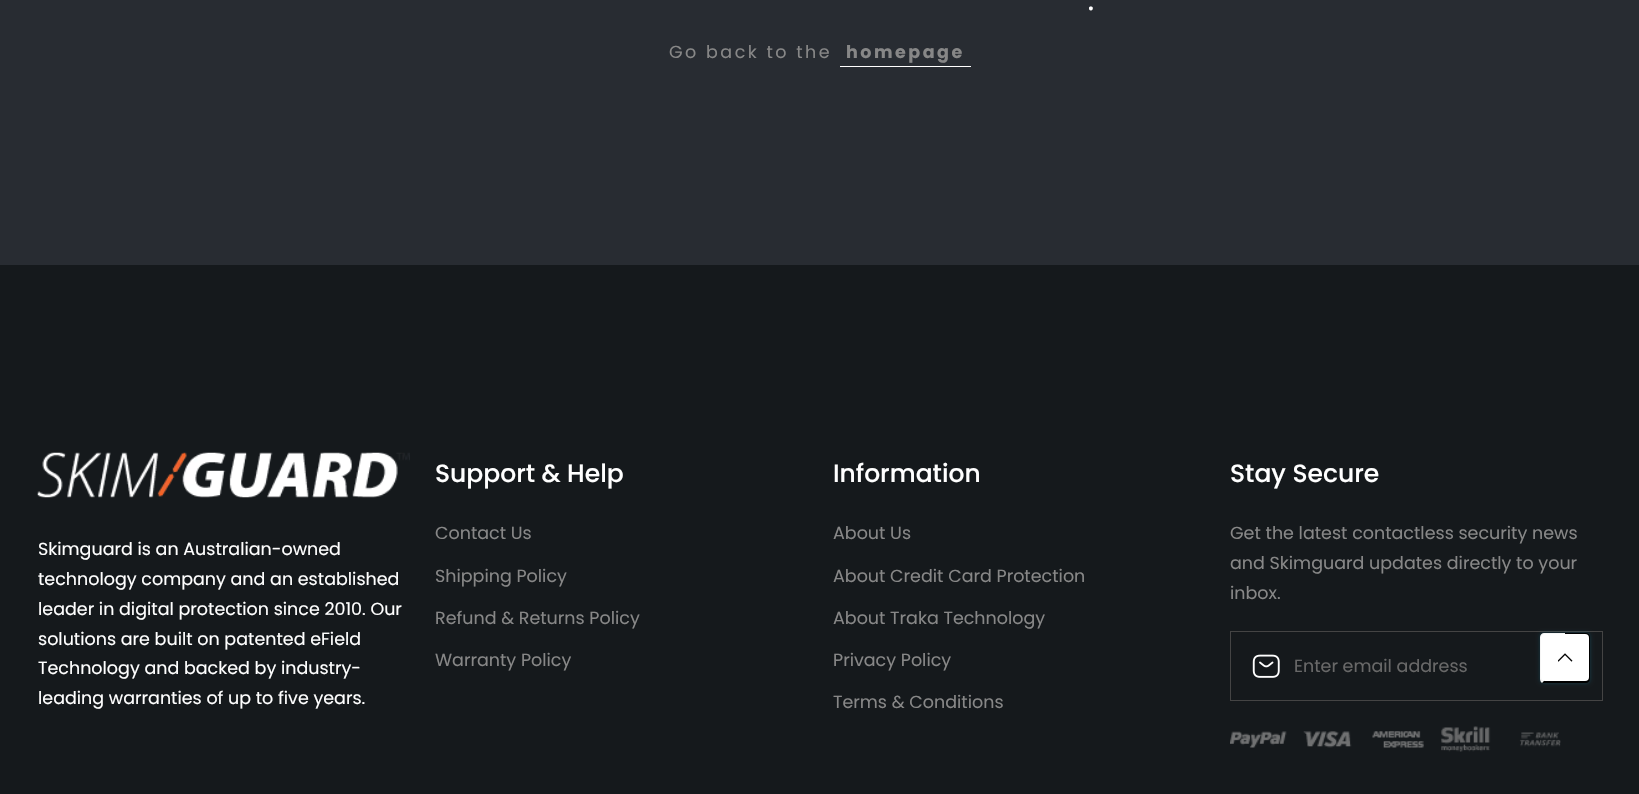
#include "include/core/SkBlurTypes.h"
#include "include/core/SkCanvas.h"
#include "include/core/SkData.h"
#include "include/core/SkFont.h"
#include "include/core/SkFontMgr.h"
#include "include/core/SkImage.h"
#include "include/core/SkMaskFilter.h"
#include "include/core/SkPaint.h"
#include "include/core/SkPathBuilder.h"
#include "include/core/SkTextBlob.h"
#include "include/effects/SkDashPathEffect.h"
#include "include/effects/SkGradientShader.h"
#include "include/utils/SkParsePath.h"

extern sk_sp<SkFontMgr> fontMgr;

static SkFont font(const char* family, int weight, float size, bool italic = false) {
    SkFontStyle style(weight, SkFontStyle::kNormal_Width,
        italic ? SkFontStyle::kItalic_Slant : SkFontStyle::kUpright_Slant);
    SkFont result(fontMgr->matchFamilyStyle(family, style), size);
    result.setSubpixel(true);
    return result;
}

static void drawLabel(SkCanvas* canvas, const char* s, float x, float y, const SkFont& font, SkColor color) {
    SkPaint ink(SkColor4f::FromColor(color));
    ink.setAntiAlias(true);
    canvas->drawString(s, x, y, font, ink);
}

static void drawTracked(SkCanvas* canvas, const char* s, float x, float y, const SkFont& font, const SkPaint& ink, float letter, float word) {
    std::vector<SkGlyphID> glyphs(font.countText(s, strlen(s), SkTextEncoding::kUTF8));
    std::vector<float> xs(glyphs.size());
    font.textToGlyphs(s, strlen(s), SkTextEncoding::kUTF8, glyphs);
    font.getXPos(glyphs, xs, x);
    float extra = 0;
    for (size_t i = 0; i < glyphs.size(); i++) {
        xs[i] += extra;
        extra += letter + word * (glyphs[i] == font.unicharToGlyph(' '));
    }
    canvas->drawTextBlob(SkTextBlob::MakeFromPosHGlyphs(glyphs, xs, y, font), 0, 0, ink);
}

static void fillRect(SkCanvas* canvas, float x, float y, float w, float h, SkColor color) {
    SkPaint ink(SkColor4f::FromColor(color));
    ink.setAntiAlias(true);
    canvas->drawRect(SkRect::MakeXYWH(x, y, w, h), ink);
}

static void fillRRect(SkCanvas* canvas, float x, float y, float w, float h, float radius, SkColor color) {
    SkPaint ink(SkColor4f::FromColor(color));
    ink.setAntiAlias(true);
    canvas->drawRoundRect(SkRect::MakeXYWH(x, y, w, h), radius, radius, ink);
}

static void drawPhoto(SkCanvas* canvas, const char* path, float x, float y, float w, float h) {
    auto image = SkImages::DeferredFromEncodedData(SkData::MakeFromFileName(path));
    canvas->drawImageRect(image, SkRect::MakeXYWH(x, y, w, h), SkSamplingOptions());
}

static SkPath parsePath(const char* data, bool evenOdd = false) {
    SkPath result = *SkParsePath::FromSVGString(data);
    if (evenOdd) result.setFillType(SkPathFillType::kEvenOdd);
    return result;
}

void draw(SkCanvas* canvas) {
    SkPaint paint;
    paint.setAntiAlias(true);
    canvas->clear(0xFF282C32);
    SkFont font1 = font("Poppins", 600, 22);
    drawLabel(canvas, ".", 1088, 10, font1, 0xFFFFFFFF);
    SkFont font2 = font("Poppins", 400, 17.5f);
    paint.setColor(0xFF878787);
    drawTracked(canvas, "Go back to the", 669, 58, font2, paint, 2.5f, 0);
    SkFont font3 = font("Poppins", 700, 17.5f);
    drawTracked(canvas, "homepage", 846, 58, font3, paint, 2.5f, 0);
    fillRect(canvas, 840, 66, 131, 1, 0xFFFFFFFF);
    fillRect(canvas, 0, 265, 1639, 529, 0xFF15191C);
    drawPhoto(canvas, "assets/img1.png", 37, 452, 373, 46);
    drawLabel(canvas, "Skimguard is an Australian-owned", 38, 555, font2, 0xFFFFFFFF);
    drawLabel(canvas, "technology company and an established", 38, 585, font2, 0xFFFFFFFF);
    drawLabel(canvas, "leader in digital protection since 2010. Our", 38, 615, font2, 0xFFFFFFFF);
    drawLabel(canvas, "solutions are built on patented eField", 38, 645, font2, 0xFFFFFFFF);
    drawLabel(canvas, "Technology and backed by industry-", 38, 674, font2, 0xFFFFFFFF);
    drawLabel(canvas, "leading warranties of up to five years.", 38, 704, font2, 0xFFFFFFFF);
    SkFont font4 = font("Poppins", 500, 25);
    drawLabel(canvas, "Support & Help", 435, 482, font4, 0xFFFFFFFF);
    drawLabel(canvas, "Contact Us", 435, 539, font2, 0xFF878787);
    drawLabel(canvas, "Shipping Policy", 435, 582, font2, 0xFF878787);
    drawLabel(canvas, "Refund & Returns Policy", 435, 624, font2, 0xFF878787);
    drawLabel(canvas, "Warranty Policy", 435, 666, font2, 0xFF878787);
    drawLabel(canvas, "Information", 833, 482, font4, 0xFFFFFFFF);
    drawLabel(canvas, "About Us", 833, 539, font2, 0xFF878787);
    drawLabel(canvas, "About Credit Card Protection", 833, 582, font2, 0xFF878787);
    drawLabel(canvas, "About Traka Technology", 833, 624, font2, 0xFF878787);
    drawLabel(canvas, "Privacy Policy", 833, 666, font2, 0xFF878787);
    drawLabel(canvas, "Terms & Conditions", 833, 708, font2, 0xFF878787);
    drawLabel(canvas, "Stay Secure", 1230, 482, font4, 0xFFFFFFFF);
    drawLabel(canvas, "Get the latest contactless security news", 1230, 539, font2, 0xFF878787);
    drawLabel(canvas, "and Skimguard updates directly to your", 1230, 569, font2, 0xFF878787);
    drawLabel(canvas, "inbox.", 1230, 599, font2, 0xFF878787);
    paint.setStroke(true);
    paint.setStrokeWidth(1);
    paint.setColor(0xFF444444);
    canvas->drawRect(SkRect::MakeXYWH(1230.5f, 631.5f, 372, 69), paint);
    drawPhoto(canvas, "assets/img2.png", 1252, 654, 28, 24);
    drawLabel(canvas, "Enter email address", 1294, 672, font2, 0xFF686868);
    drawPhoto(canvas, "assets/img3.png", 1230, 726, 331, 26);
    paint.setStroke(false);
    paint.setColor(0x3319BEED);
    paint.setMaskFilter(SkMaskFilter::MakeBlur(kNormal_SkBlurStyle, 2));
    canvas->drawRoundRect(SkRect::MakeXYWH(1540, 633, 50, 50), 4, 4, paint);
    paint.setMaskFilter(nullptr);
    paint.setColor(0xFF000000);
    canvas->drawPath(parsePath("M1565 658L1542 683H1544H1586C1588 683 1590 681 1590 679V637C1590 635 1588 633 1586 633H1565Z"), paint);
    paint.setColor(0xFFF5F5F5);
    canvas->drawPath(parsePath("M1565 658V633H1544C1542 633 1540 635 1540 637V679C1540 681 1541 682 1542 683Z"), paint);
    fillRRect(canvas, 1541, 634, 48, 47, 4, 0xFFFFFFFF);
    drawPhoto(canvas, "assets/img4.png", 1558, 653, 15, 9);
}
